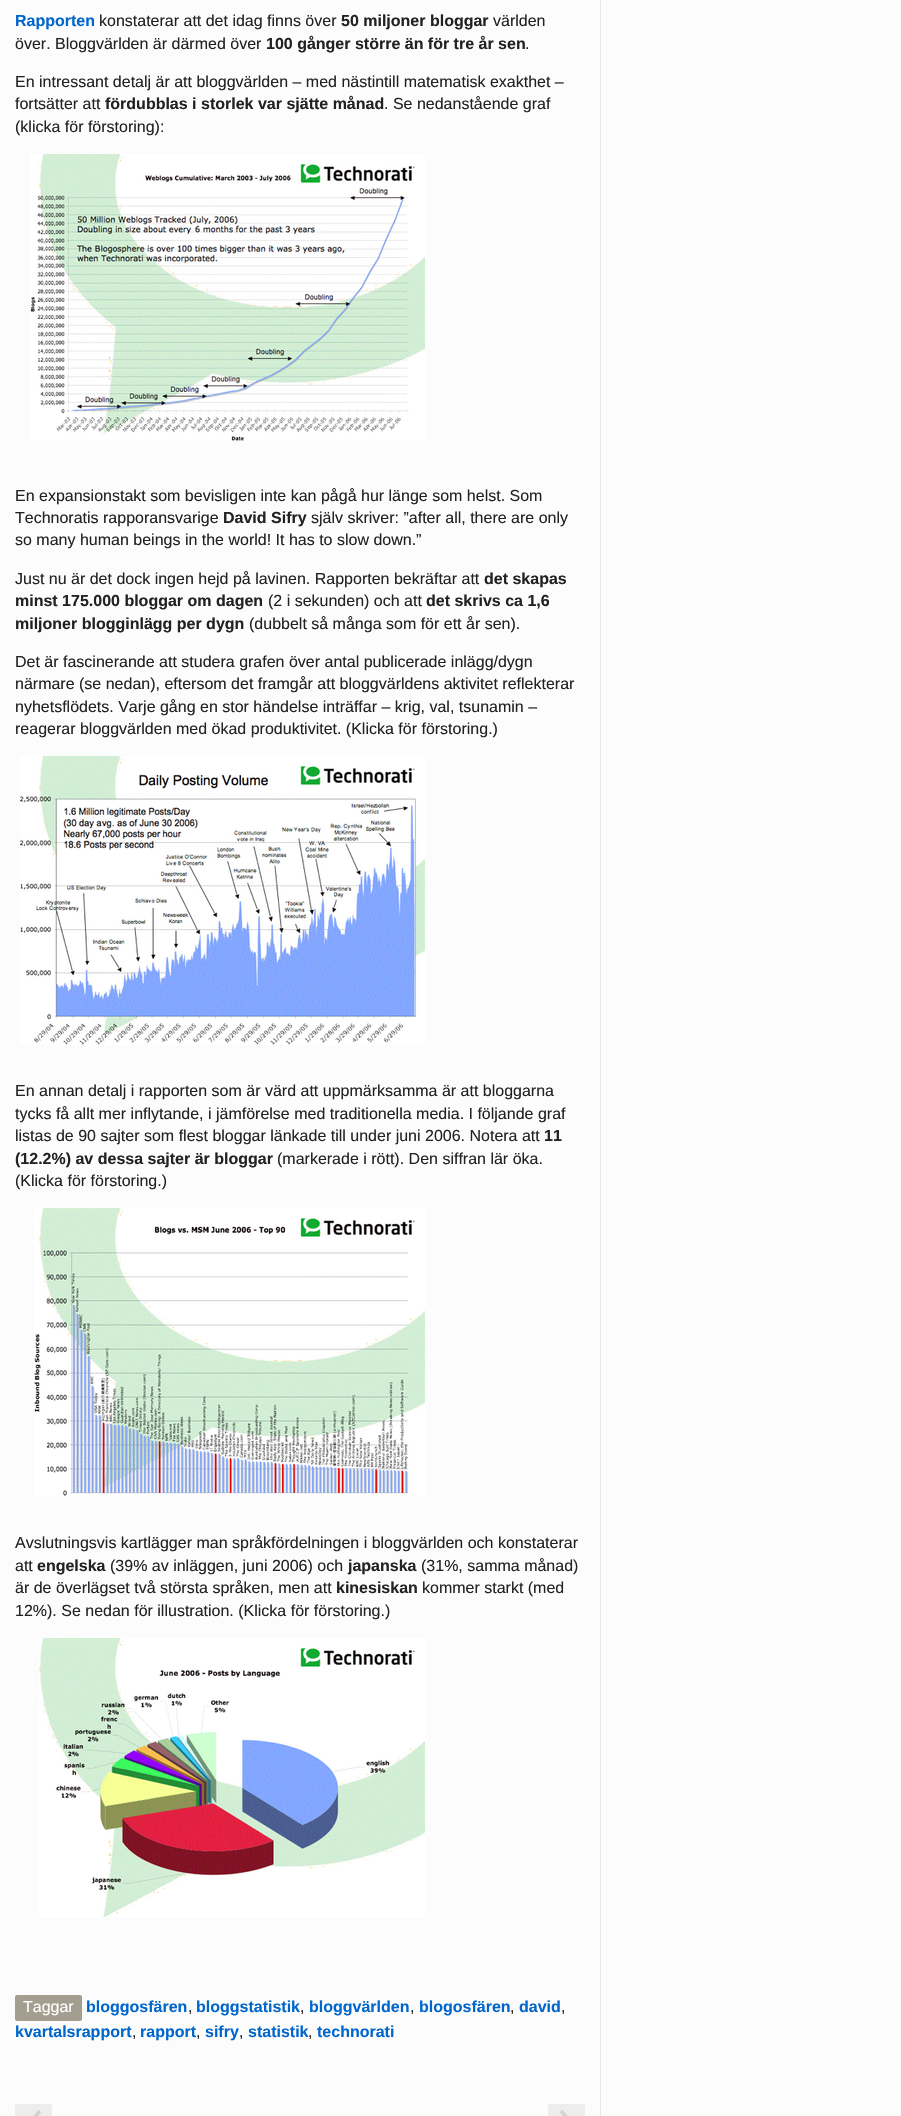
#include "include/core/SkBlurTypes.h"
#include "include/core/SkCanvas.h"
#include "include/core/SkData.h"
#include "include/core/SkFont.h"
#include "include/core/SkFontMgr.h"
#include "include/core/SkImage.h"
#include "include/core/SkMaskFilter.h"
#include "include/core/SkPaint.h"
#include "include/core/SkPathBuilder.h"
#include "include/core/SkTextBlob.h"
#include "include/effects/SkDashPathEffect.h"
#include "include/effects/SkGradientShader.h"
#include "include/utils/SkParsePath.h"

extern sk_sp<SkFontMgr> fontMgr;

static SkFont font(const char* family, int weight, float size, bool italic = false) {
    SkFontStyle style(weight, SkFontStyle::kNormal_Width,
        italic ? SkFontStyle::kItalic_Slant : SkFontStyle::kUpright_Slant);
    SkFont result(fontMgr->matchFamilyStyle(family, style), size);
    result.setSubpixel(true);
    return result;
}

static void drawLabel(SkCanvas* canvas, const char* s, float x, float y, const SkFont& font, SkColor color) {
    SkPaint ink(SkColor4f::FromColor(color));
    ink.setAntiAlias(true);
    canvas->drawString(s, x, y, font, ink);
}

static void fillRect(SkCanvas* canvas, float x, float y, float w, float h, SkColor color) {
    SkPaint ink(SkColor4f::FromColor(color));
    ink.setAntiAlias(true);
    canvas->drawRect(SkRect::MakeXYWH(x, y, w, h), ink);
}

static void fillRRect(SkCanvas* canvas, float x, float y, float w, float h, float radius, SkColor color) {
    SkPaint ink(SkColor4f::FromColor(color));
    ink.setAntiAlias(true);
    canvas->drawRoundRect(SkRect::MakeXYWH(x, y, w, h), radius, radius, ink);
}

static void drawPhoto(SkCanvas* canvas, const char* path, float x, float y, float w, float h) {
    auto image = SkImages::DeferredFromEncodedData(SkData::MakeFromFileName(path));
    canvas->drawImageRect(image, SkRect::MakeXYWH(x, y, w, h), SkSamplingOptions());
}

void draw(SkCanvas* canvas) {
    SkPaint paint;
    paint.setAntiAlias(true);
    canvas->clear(0xFFFCFCFC);
    fillRect(canvas, 600, 0, 1, 2116, 0xFFE9E9E9);
    SkFont font1 = font("Liberation Sans", 700, 16);
    drawLabel(canvas, "Rapporten", 15, 26, font1, 0xFF0066CC);
    SkFont font2 = font("Liberation Sans", 400, 16);
    drawLabel(canvas, "konstaterar att det idag finns över", 99, 26, font2, 0xFF222222);
    drawLabel(canvas, "50 miljoner bloggar", 341, 26, font1, 0xFF222222);
    drawLabel(canvas, "världen", 493, 26, font2, 0xFF222222);
    drawLabel(canvas, "över. Bloggvärlden är därmed över", 15, 49, font2, 0xFF222222);
    drawLabel(canvas, "100 gånger större än för tre år sen", 266, 49, font1, 0xFF222222);
    drawLabel(canvas, ".", 525, 49, font2, 0xFF222222);
    drawLabel(canvas, "En intressant detalj är att bloggvärlden – med nästintill matematisk exakthet –", 15, 87, font2, 0xFF222222);
    drawLabel(canvas, "fortsätter att", 15, 109, font2, 0xFF222222);
    drawLabel(canvas, "fördubblas i storlek var sjätte månad", 105, 109, font1, 0xFF222222);
    drawLabel(canvas, ". Se nedanstående graf", 384, 109, font2, 0xFF222222);
    drawLabel(canvas, "(klicka för förstoring):", 15, 132, font2, 0xFF222222);
    drawPhoto(canvas, "assets/img1.png", 30, 154, 395, 287);
    drawLabel(canvas, "En expansionstakt som bevisligen inte kan pågå hur länge som helst. Som", 15, 501, font2, 0xFF222222);
    drawLabel(canvas, "Technoratis rapporansvarige", 15, 523, font2, 0xFF222222);
    drawLabel(canvas, "David Sifry", 223, 523, font1, 0xFF222222);
    drawLabel(canvas, "själv skriver: ”after all, there are only", 311, 523, font2, 0xFF222222);
    drawLabel(canvas, "so many human beings in the world! It has to slow down.”", 15, 545, font2, 0xFF222222);
    drawLabel(canvas, "Just nu är det dock ingen hejd på lavinen. Rapporten bekräftar att", 15, 584, font2, 0xFF222222);
    drawLabel(canvas, "det skapas", 484, 584, font1, 0xFF222222);
    drawLabel(canvas, "minst 175.000 bloggar om dagen", 15, 606, font1, 0xFF222222);
    drawLabel(canvas, "(2 i sekunden) och att", 268, 606, font2, 0xFF222222);
    drawLabel(canvas, "det skrivs ca 1,6", 426, 606, font1, 0xFF222222);
    drawLabel(canvas, "miljoner blogginlägg per dygn", 15, 629, font1, 0xFF222222);
    drawLabel(canvas, "(dubbelt så många som för ett år sen).", 249, 629, font2, 0xFF222222);
    drawLabel(canvas, "Det är fascinerande att studera grafen över antal publicerade inlägg/dygn", 15, 667, font2, 0xFF222222);
    drawLabel(canvas, "närmare (se nedan), eftersom det framgår att bloggvärldens aktivitet reflekterar", 15, 689, font2, 0xFF222222);
    drawLabel(canvas, "nyhetsflödets. Varje gång en stor händelse inträffar – krig, val, tsunamin –", 15, 712, font2, 0xFF222222);
    drawLabel(canvas, "reagerar bloggvärlden med ökad produktivitet. (Klicka för förstoring.)", 15, 734, font2, 0xFF222222);
    drawPhoto(canvas, "assets/img2.png", 20, 756, 405, 289);
    drawLabel(canvas, "En annan detalj i rapporten som är värd att uppmärksamma är att bloggarna", 15, 1096, font2, 0xFF222222);
    drawLabel(canvas, "tycks få allt mer inflytande, i jämförelse med traditionella media. I följande graf", 15, 1119, font2, 0xFF222222);
    drawLabel(canvas, "listas de 90 sajter som flest bloggar länkade till under juni 2006. Notera att", 15, 1141, font2, 0xFF222222);
    drawLabel(canvas, "11", 544, 1141, font1, 0xFF222222);
    drawLabel(canvas, "(12.2%) av dessa sajter är bloggar", 15, 1164, font1, 0xFF222222);
    drawLabel(canvas, "(markerade i rött). Den siffran lär öka.", 277, 1164, font2, 0xFF222222);
    drawLabel(canvas, "(Klicka för förstoring.)", 15, 1186, font2, 0xFF222222);
    drawPhoto(canvas, "assets/img3.png", 34, 1208, 391, 288);
    drawLabel(canvas, "Avslutningsvis kartlägger man språkfördelningen i bloggvärlden och konstaterar", 15, 1548, font2, 0xFF222222);
    drawLabel(canvas, "att", 15, 1571, font2, 0xFF222222);
    drawLabel(canvas, "engelska", 37, 1571, font1, 0xFF222222);
    drawLabel(canvas, "(39% av inläggen, juni 2006) och", 110, 1571, font2, 0xFF222222);
    drawLabel(canvas, "japanska", 348, 1571, font1, 0xFF222222);
    drawLabel(canvas, "(31%, samma månad)", 421, 1571, font2, 0xFF222222);
    drawLabel(canvas, "är de överlägset två största språken, men att", 15, 1593, font2, 0xFF222222);
    drawLabel(canvas, "kinesiskan", 336, 1593, font1, 0xFF222222);
    drawLabel(canvas, "kommer starkt (med", 422, 1593, font2, 0xFF222222);
    drawLabel(canvas, "12%). Se nedan för illustration. (Klicka för förstoring.)", 15, 1616, font2, 0xFF222222);
    drawPhoto(canvas, "assets/img4.png", 39, 1638, 386, 280);
    fillRRect(canvas, 15, 1995, 67, 26, 2, 0xFFA49E90);
    drawLabel(canvas, "Taggar", 23, 2012, font2, 0xFFFFFFFF);
    drawLabel(canvas, "bloggosfären", 86, 2012, font1, 0xFF0066CC);
    drawLabel(canvas, ",", 188, 2012, font2, 0xFF222222);
    drawLabel(canvas, "bloggstatistik", 196, 2012, font1, 0xFF0066CC);
    drawLabel(canvas, ",", 300, 2012, font2, 0xFF222222);
    drawLabel(canvas, "bloggvärlden", 309, 2012, font1, 0xFF0066CC);
    drawLabel(canvas, ",", 410, 2012, font2, 0xFF222222);
    drawLabel(canvas, "blogosfären", 419, 2012, font1, 0xFF0066CC);
    drawLabel(canvas, ",", 510, 2012, font2, 0xFF222222);
    drawLabel(canvas, "david", 519, 2012, font1, 0xFF0066CC);
    drawLabel(canvas, ",", 561, 2012, font2, 0xFF222222);
    drawLabel(canvas, "kvartalsrapport", 15, 2037, font1, 0xFF0066CC);
    drawLabel(canvas, ",", 132, 2037, font2, 0xFF222222);
    drawLabel(canvas, "rapport", 140, 2037, font1, 0xFF0066CC);
    drawLabel(canvas, ",", 196, 2037, font2, 0xFF222222);
    drawLabel(canvas, "sifry", 205, 2037, font1, 0xFF0066CC);
    drawLabel(canvas, ",", 239, 2037, font2, 0xFF222222);
    drawLabel(canvas, "statistik", 248, 2037, font1, 0xFF0066CC);
    drawLabel(canvas, ",", 308, 2037, font2, 0xFF222222);
    drawLabel(canvas, "technorati", 317, 2037, font1, 0xFF0066CC);
    fillRRect(canvas, 15, 2104, 37, 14, 2, 0xFFEDEDED);
    drawPhoto(canvas, "assets/img5.png", 33, 2110, 8, 6);
    fillRRect(canvas, 548, 2104, 37, 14, 2, 0xFFEDEDED);
    drawPhoto(canvas, "assets/img6.png", 560, 2110, 8, 6);
}
